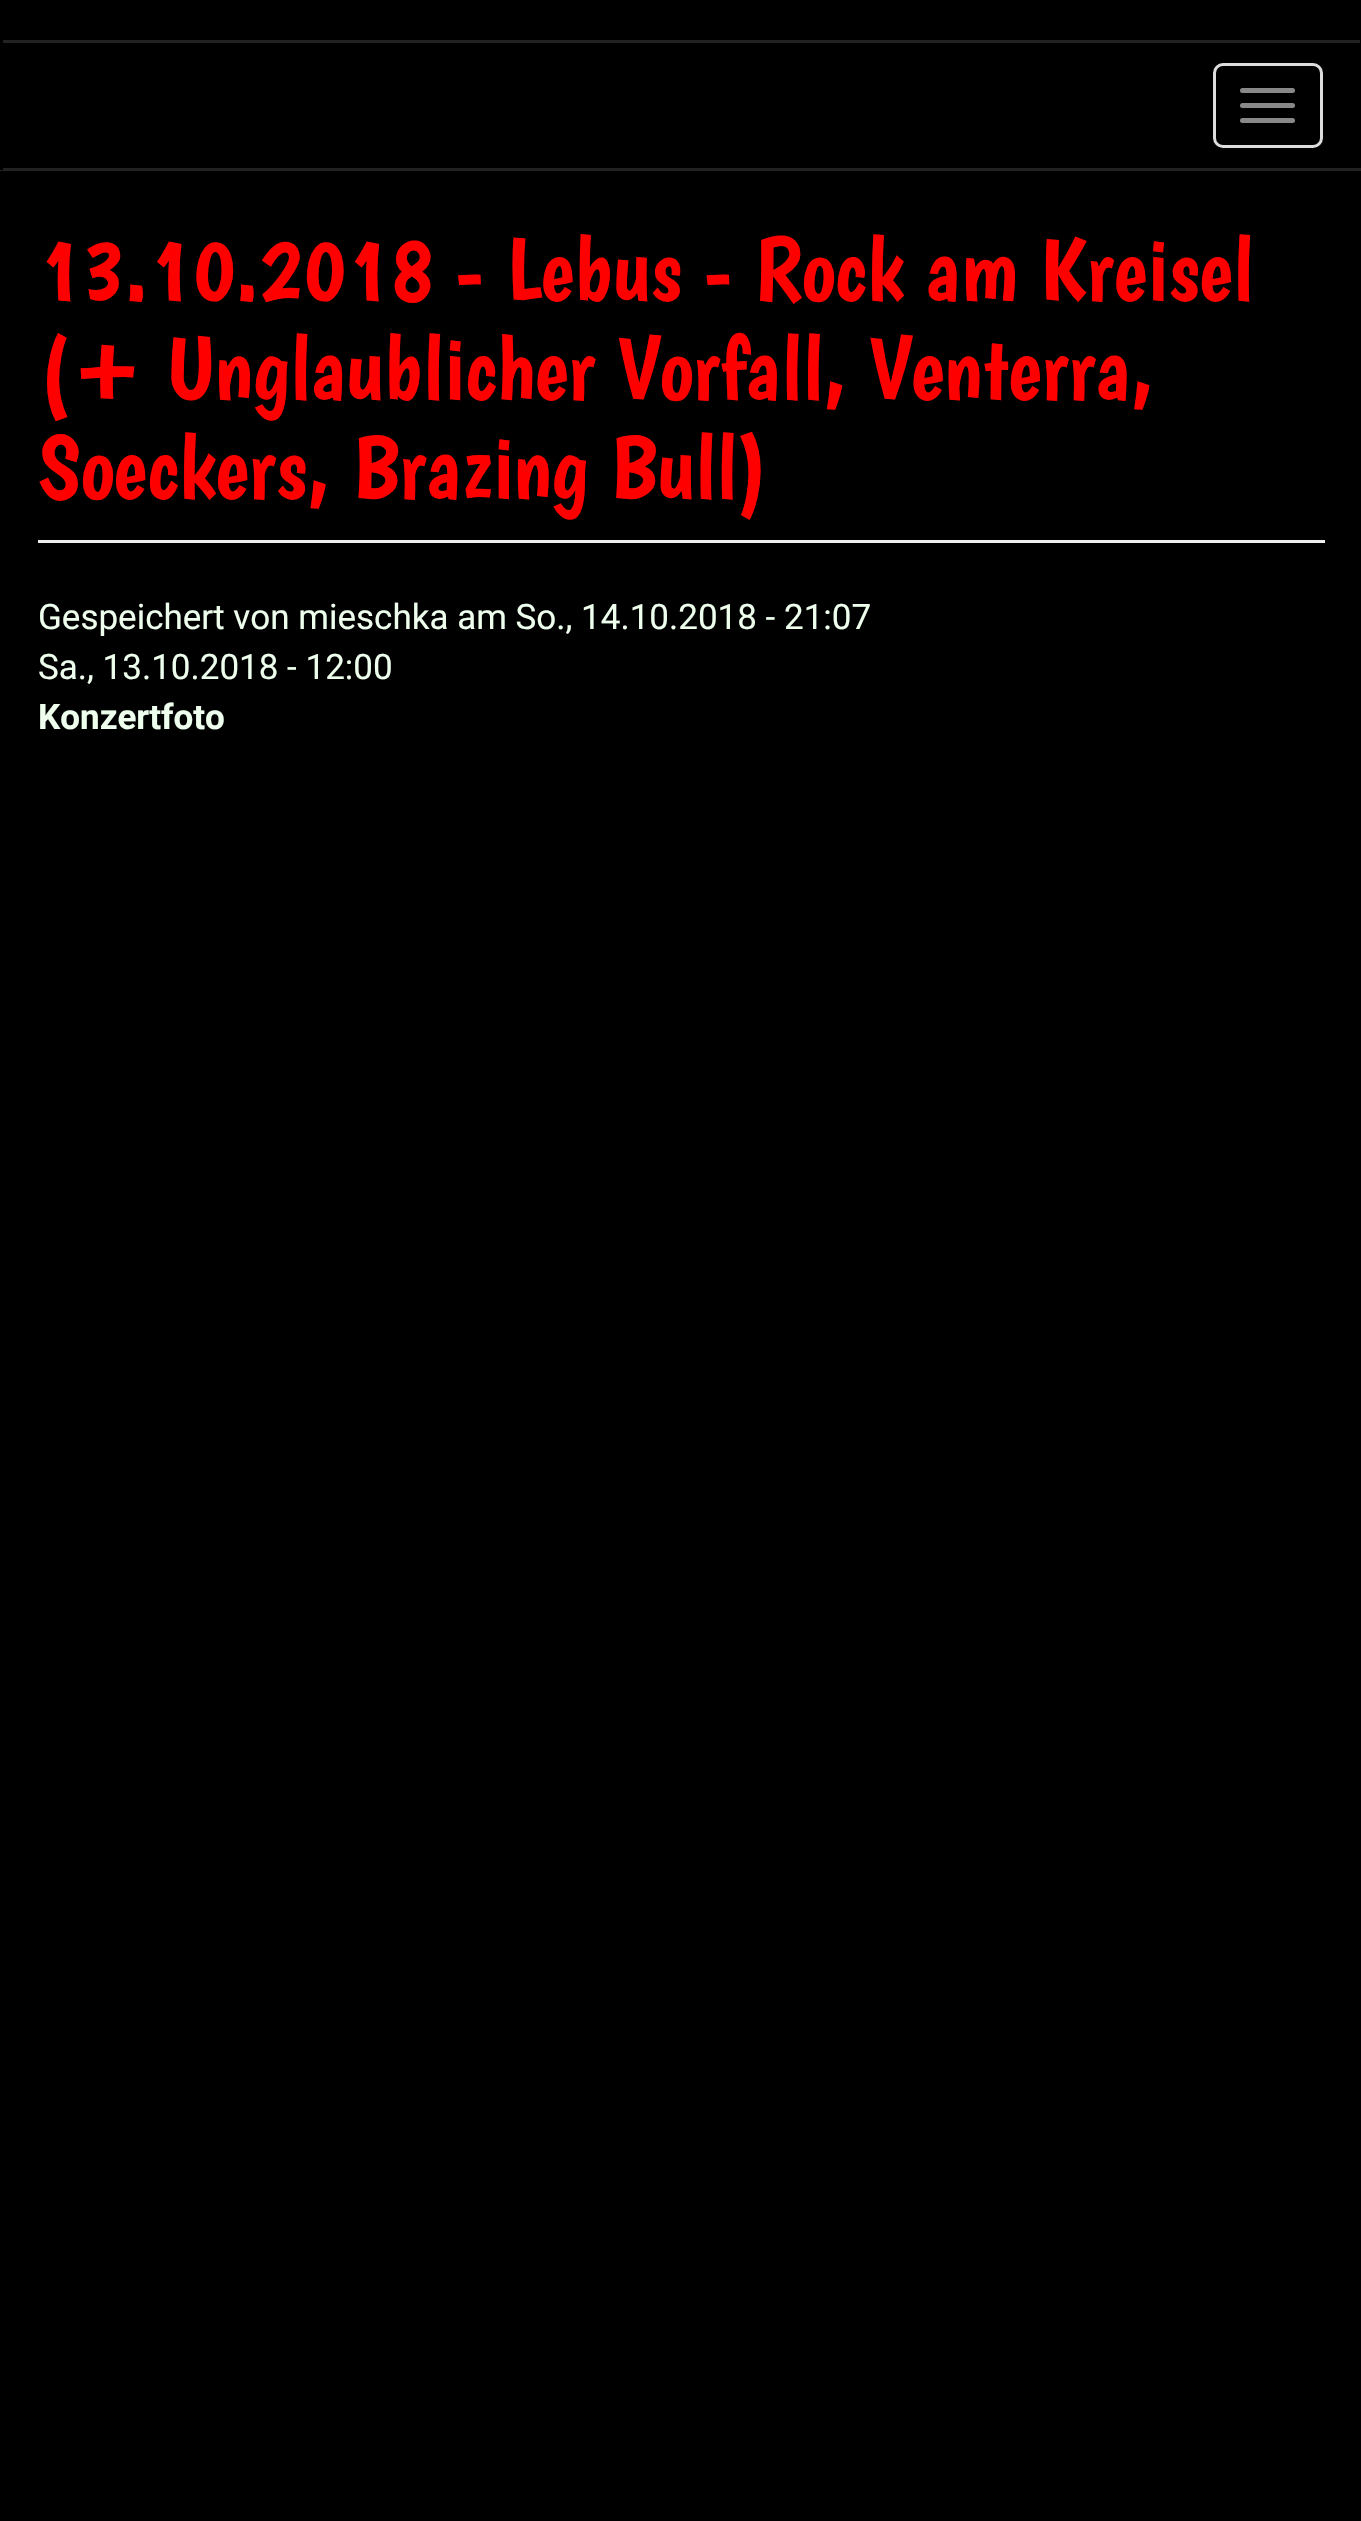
#include "include/core/SkBlurTypes.h"
#include "include/core/SkCanvas.h"
#include "include/core/SkData.h"
#include "include/core/SkFont.h"
#include "include/core/SkFontMgr.h"
#include "include/core/SkImage.h"
#include "include/core/SkMaskFilter.h"
#include "include/core/SkPaint.h"
#include "include/core/SkPathBuilder.h"
#include "include/core/SkTextBlob.h"
#include "include/effects/SkDashPathEffect.h"
#include "include/effects/SkGradientShader.h"
#include "include/utils/SkParsePath.h"

extern sk_sp<SkFontMgr> fontMgr;

static SkFont font(const char* family, int weight, float size, bool italic = false) {
    SkFontStyle style(weight, SkFontStyle::kNormal_Width,
        italic ? SkFontStyle::kItalic_Slant : SkFontStyle::kUpright_Slant);
    SkFont result(fontMgr->matchFamilyStyle(family, style), size);
    result.setSubpixel(true);
    return result;
}

static void drawLabel(SkCanvas* canvas, const char* s, float x, float y, const SkFont& font, SkColor color) {
    SkPaint ink(SkColor4f::FromColor(color));
    ink.setAntiAlias(true);
    canvas->drawString(s, x, y, font, ink);
}

static void fillRect(SkCanvas* canvas, float x, float y, float w, float h, SkColor color) {
    SkPaint ink(SkColor4f::FromColor(color));
    ink.setAntiAlias(true);
    canvas->drawRect(SkRect::MakeXYWH(x, y, w, h), ink);
}

static void fillRRect(SkCanvas* canvas, float x, float y, float w, float h, float radius, SkColor color) {
    SkPaint ink(SkColor4f::FromColor(color));
    ink.setAntiAlias(true);
    canvas->drawRoundRect(SkRect::MakeXYWH(x, y, w, h), radius, radius, ink);
}

void draw(SkCanvas* canvas) {
    SkPaint paint;
    paint.setAntiAlias(true);
    canvas->clear(0xFF000000);
    fillRect(canvas, 0, 40, 1361, 3, 0xFF222222);
    fillRect(canvas, 1360, 40, 1, 3, 0xFF000000);
    fillRect(canvas, 0, 168, 1361, 3, 0xFF222222);
    fillRect(canvas, 0, 40, 3, 130, 0xFF000000);
    paint.setStroke(true);
    paint.setStrokeWidth(3);
    paint.setColor(0xFFDDDDDD);
    canvas->drawRoundRect(SkRect::MakeXYWH(1214.5f, 64.5f, 107, 82), 8.5f, 8.5f, paint);
    fillRRect(canvas, 1240, 88, 55, 5, 2.5f, 0xFF888888);
    fillRRect(canvas, 1240, 103, 55, 5, 2.5f, 0xFF888888);
    fillRRect(canvas, 1240, 118, 55, 5, 2.5f, 0xFF888888);
    fillRect(canvas, 38, 540, 1287, 3, 0xFFEEEEEE);
    SkFont font1 = font("Boogaloo", 400, 90);
    drawLabel(canvas, "13.10.2018 - Lebus - Rock am Kreisel", 38, 300, font1, 0xFFFE0000);
    drawLabel(canvas, "(+ Unglaublicher Vorfall, Venterra,", 38, 399, font1, 0xFFFE0000);
    drawLabel(canvas, "Soeckers, Brazing Bull)", 38, 498, font1, 0xFFFE0000);
    SkFont font2 = font("Roboto", 400, 35);
    drawLabel(canvas, "Gespeichert von mieschka am So., 14.10.2018 - 21:07", 38, 629, font2, 0xFFEEFFEE);
    drawLabel(canvas, "Sa., 13.10.2018 - 12:00", 38, 679, font2, 0xFFEEFFEE);
    SkFont font3 = font("Roboto", 700, 35);
    drawLabel(canvas, "Konzertfoto", 38, 729, font3, 0xFFEEFFEE);
}
